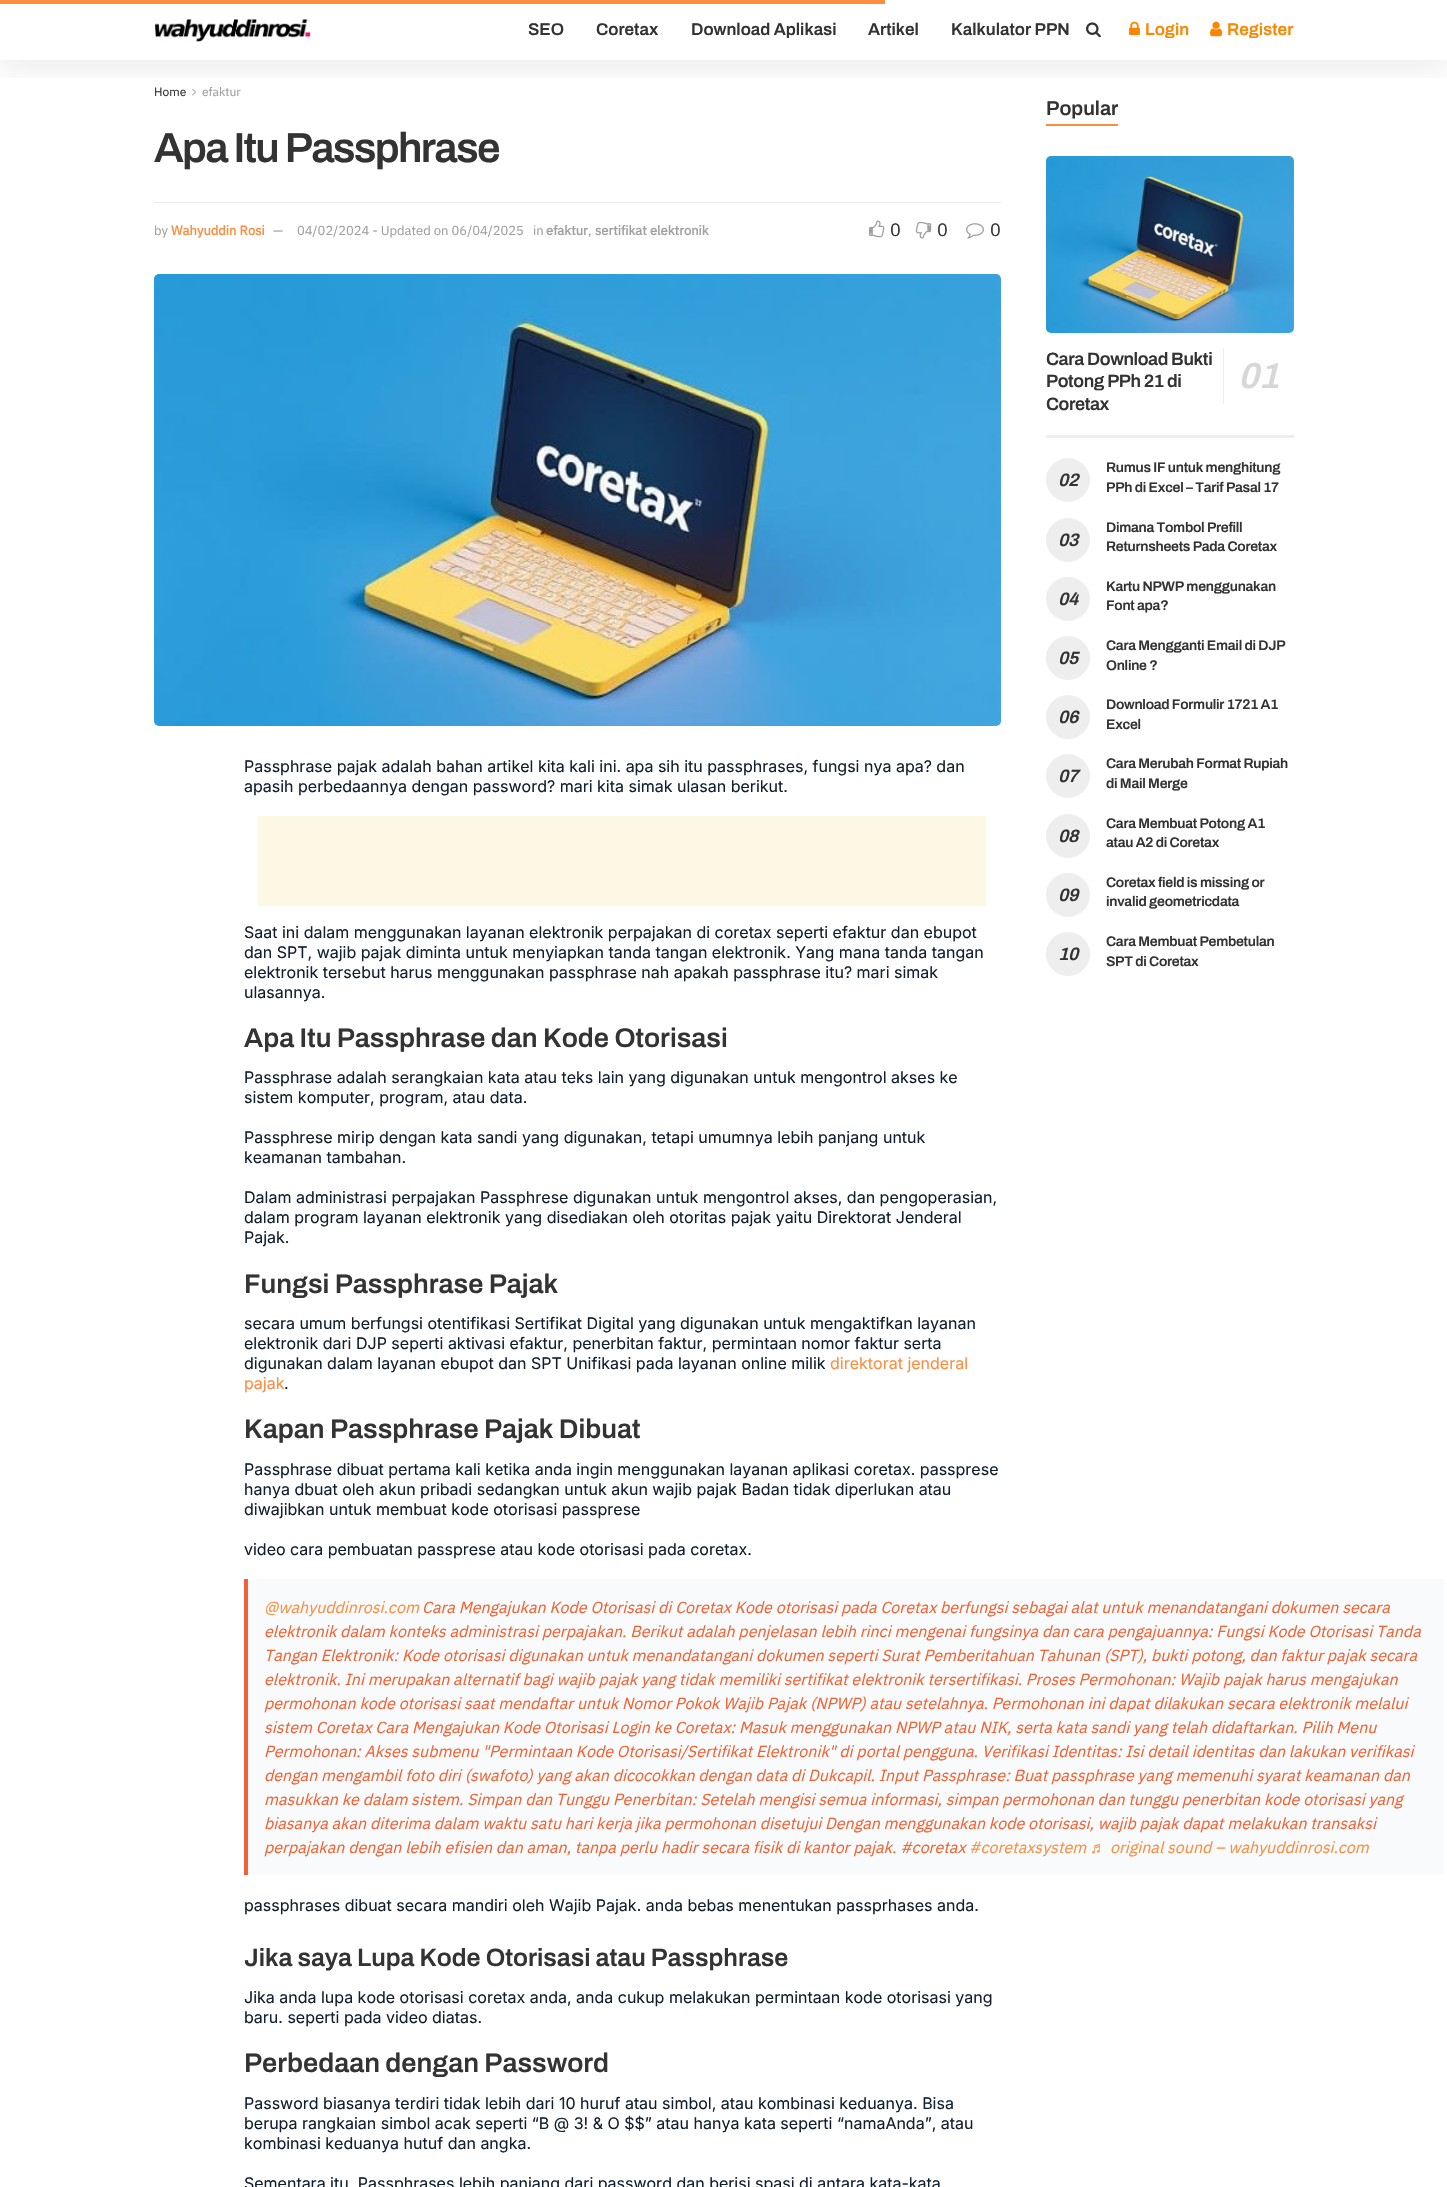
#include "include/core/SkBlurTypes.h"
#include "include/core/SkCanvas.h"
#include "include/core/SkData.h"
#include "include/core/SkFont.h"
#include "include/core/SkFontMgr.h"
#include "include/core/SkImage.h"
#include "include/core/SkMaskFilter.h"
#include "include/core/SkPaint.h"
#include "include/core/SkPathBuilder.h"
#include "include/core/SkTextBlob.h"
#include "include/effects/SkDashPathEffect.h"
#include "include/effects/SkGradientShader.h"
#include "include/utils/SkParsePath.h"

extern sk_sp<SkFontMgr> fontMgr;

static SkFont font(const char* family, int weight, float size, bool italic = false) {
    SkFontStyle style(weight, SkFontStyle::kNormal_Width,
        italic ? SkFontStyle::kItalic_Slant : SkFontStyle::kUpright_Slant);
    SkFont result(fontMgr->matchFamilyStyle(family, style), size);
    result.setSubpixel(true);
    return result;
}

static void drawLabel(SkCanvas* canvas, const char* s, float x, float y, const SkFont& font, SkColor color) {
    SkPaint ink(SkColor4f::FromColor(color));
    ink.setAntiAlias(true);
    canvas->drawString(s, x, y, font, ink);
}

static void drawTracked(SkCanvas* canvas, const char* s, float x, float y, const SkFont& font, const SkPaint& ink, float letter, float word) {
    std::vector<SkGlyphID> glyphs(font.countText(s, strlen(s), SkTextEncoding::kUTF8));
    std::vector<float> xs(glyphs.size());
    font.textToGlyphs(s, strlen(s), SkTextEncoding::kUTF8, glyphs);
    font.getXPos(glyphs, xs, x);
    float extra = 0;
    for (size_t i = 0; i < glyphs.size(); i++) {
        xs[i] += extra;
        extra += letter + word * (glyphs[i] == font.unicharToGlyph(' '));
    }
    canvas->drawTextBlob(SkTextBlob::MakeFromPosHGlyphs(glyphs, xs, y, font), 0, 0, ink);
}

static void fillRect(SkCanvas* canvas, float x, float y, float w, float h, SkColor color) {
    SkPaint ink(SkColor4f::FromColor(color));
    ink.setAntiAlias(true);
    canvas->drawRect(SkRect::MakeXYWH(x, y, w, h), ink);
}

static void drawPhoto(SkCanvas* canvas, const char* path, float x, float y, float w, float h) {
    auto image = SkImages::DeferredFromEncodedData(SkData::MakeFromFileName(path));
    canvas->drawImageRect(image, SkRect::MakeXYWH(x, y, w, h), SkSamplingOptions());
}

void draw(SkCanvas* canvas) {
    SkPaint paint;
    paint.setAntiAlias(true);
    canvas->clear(0xFFFFFFFF);
    drawPhoto(canvas, "assets/img5.png", 192, 88, 4, 8);
    canvas->save();
    canvas->clipRect(SkRect::MakeXYWH(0, 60, 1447, 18));
    paint.setColor(0x12000115);
    paint.setMaskFilter(SkMaskFilter::MakeBlur(kNormal_SkBlurStyle, 15));
    canvas->drawRect(SkRect::MakeXYWH(0, 10, 1447, 60), paint);
    paint.setMaskFilter(nullptr);
    canvas->restore();
    fillRect(canvas, 0, 0, 885, 4, 0xFFFC8E41);
    drawPhoto(canvas, "assets/img1.png", 154, 19, 157, 23);
    SkFont font1 = font("Archivo", 600, 17);
    drawLabel(canvas, "SEO", 528, 35, font1, 0xFF333333);
    drawLabel(canvas, "Coretax", 596, 35, font1, 0xFF333333);
    drawLabel(canvas, "Download Aplikasi", 691, 35, font1, 0xFF333333);
    drawLabel(canvas, "Artikel", 868, 35, font1, 0xFF333333);
    drawLabel(canvas, "Kalkulator PPN", 951, 35, font1, 0xFF333333);
    drawPhoto(canvas, "assets/img2.png", 1086, 22, 15, 16);
    drawPhoto(canvas, "assets/img3.png", 1129, 21, 11, 14);
    drawLabel(canvas, "Login", 1145, 35, font1, 0xFFFC8600);
    drawPhoto(canvas, "assets/img4.png", 1210, 21, 13, 16);
    drawLabel(canvas, "Register", 1227, 35, font1, 0xFFFC8600);
    SkFont font2 = font("IBM Plex Sans", 400, 12);
    drawLabel(canvas, "Home", 154, 96, font2, 0xFF333333);
    drawLabel(canvas, "efaktur", 202, 96, font2, 0xFFA0A0A0);
    SkFont font3 = font("Archivo", 600, 42);
    paint.setColor(0xFF333333);
    drawTracked(canvas, "Apa Itu Passphrase", 154, 162, font3, paint, -1.7f, 0);
    fillRect(canvas, 154, 202, 847, 1, 0xFFEAEAEA);
    SkFont font4 = font("IBM Plex Sans", 400, 13);
    drawLabel(canvas, "by", 154, 235, font4, 0xFFA0A0A0);
    SkFont font5 = font("IBM Plex Sans", 700, 13);
    drawLabel(canvas, "Wahyuddin Rosi", 171, 235, font5, 0xFFFC8E41);
    drawLabel(canvas, "—", 273, 235, font4, 0xFFA0A0A0);
    drawLabel(canvas, "04/02/2024 - Updated on 06/04/2025", 297, 235, font4, 0xFFA0A0A0);
    drawLabel(canvas, "in", 533, 235, font4, 0xFFA0A0A0);
    drawLabel(canvas, "efaktur", 546, 235, font5, 0xFFA0A0A0);
    drawLabel(canvas, ",", 588, 235, font4, 0xFFA0A0A0);
    drawLabel(canvas, "sertifikat elektronik", 595, 235, font5, 0xFFA0A0A0);
    drawPhoto(canvas, "assets/img6.png", 869, 220, 16, 18);
    SkFont font6 = font("IBM Plex Sans", 400, 18);
    drawLabel(canvas, "0", 890, 236, font6, 0xFF333333);
    drawPhoto(canvas, "assets/img7.png", 915, 221, 17, 18);
    drawLabel(canvas, "0", 937, 236, font6, 0xFF333333);
    drawPhoto(canvas, "assets/img8.png", 966, 223, 18, 16);
    drawLabel(canvas, "0", 990, 236, font6, 0xFF333333);
    drawPhoto(canvas, "assets/img9.png", 154, 274, 847, 452);
    SkFont font7 = font("Inter", 400, 16);
    drawLabel(canvas, "Passphrase pajak adalah bahan artikel kita kali ini. apa sih itu passphrases, fungsi nya apa? dan", 244, 772, font7, 0xFF112030);
    drawLabel(canvas, "apasih perbedaannya dengan password? mari kita simak ulasan berikut.", 244, 792, font7, 0xFF112030);
    fillRect(canvas, 258, 816, 728, 90, 0xFFFCF8E3);
    drawLabel(canvas, "Saat ini dalam menggunakan layanan elektronik perpajakan di coretax seperti efaktur dan ebupot", 244, 938, font7, 0xFF112030);
    drawLabel(canvas, "dan SPT, wajib pajak diminta untuk menyiapkan tanda tangan elektronik. Yang mana tanda tangan", 244, 958, font7, 0xFF112030);
    drawLabel(canvas, "elektronik tersebut harus menggunakan passphrase nah apakah passphrase itu? mari simak", 244, 978, font7, 0xFF112030);
    drawLabel(canvas, "ulasannya.", 244, 998, font7, 0xFF112030);
    SkFont font8 = font("Archivo", 600, 27);
    drawLabel(canvas, "Apa Itu Passphrase dan Kode Otorisasi", 244, 1047, font8, 0xFF333333);
    drawLabel(canvas, "Passphrase adalah serangkaian kata atau teks lain yang digunakan untuk mengontrol akses ke", 244, 1083, font7, 0xFF112030);
    drawLabel(canvas, "sistem komputer, program, atau data.", 244, 1103, font7, 0xFF112030);
    drawLabel(canvas, "Passphrese mirip dengan kata sandi yang digunakan, tetapi umumnya lebih panjang untuk", 244, 1143, font7, 0xFF112030);
    drawLabel(canvas, "keamanan tambahan.", 244, 1163, font7, 0xFF112030);
    drawLabel(canvas, "Dalam administrasi perpajakan Passphrese digunakan untuk mengontrol akses, dan pengoperasian,", 244, 1203, font7, 0xFF112030);
    drawLabel(canvas, "dalam program layanan elektronik yang disediakan oleh otoritas pajak yaitu Direktorat Jenderal", 244, 1223, font7, 0xFF112030);
    drawLabel(canvas, "Pajak.", 244, 1243, font7, 0xFF112030);
    drawLabel(canvas, "Fungsi Passphrase Pajak", 244, 1293, font8, 0xFF333333);
    drawLabel(canvas, "secara umum berfungsi otentifikasi Sertifikat Digital yang digunakan untuk mengaktifkan layanan", 244, 1329, font7, 0xFF112030);
    drawLabel(canvas, "elektronik dari DJP seperti aktivasi efaktur, penerbitan faktur, permintaan nomor faktur serta", 244, 1349, font7, 0xFF112030);
    drawLabel(canvas, "digunakan dalam layanan ebupot dan SPT Unifikasi pada layanan online milik", 244, 1369, font7, 0xFF112030);
    drawLabel(canvas, "direktorat jenderal", 830, 1369, font7, 0xFFFC8E41);
    drawLabel(canvas, "pajak", 244, 1389, font7, 0xFFFC8E41);
    drawLabel(canvas, ".", 284, 1389, font7, 0xFF112030);
    drawLabel(canvas, "Kapan Passphrase Pajak Dibuat", 244, 1438, font8, 0xFF333333);
    drawLabel(canvas, "Passphrase dibuat pertama kali ketika anda ingin menggunakan layanan aplikasi coretax. passprese", 244, 1475, font7, 0xFF112030);
    drawLabel(canvas, "hanya dbuat oleh akun pribadi sedangkan untuk akun wajib pajak Badan tidak diperlukan atau", 244, 1495, font7, 0xFF112030);
    drawLabel(canvas, "diwajibkan untuk membuat kode otorisasi passprese", 244, 1515, font7, 0xFF112030);
    drawLabel(canvas, "video cara pembuatan passprese atau kode otorisasi pada coretax.", 244, 1555, font7, 0xFF112030);
    fillRect(canvas, 248, 1579, 1196, 296, 0xFFF9FAFB);
    fillRect(canvas, 244, 1579, 4, 296, 0xFFF16334);
    SkFont font9 = font("IBM Plex Sans", 400, 16, true);
    drawLabel(canvas, "@wahyuddinrosi.com", 264, 1613, font9, 0xFFFC8E41);
    drawLabel(canvas, "Cara Mengajukan Kode Otorisasi di Coretax Kode otorisasi pada Coretax berfungsi sebagai alat untuk menandatangani dokumen secara", 422, 1613, font9, 0xFFF16334);
    drawLabel(canvas, "elektronik dalam konteks administrasi perpajakan. Berikut adalah penjelasan lebih rinci mengenai fungsinya dan cara pengajuannya: Fungsi Kode Otorisasi Tanda", 264, 1637, font9, 0xFFF16334);
    drawLabel(canvas, "Tangan Elektronik: Kode otorisasi digunakan untuk menandatangani dokumen seperti Surat Pemberitahuan Tahunan (SPT), bukti potong, dan faktur pajak secara", 264, 1661, font9, 0xFFF16334);
    drawLabel(canvas, "elektronik. Ini merupakan alternatif bagi wajib pajak yang tidak memiliki sertifikat elektronik tersertifikasi. Proses Permohonan: Wajib pajak harus mengajukan", 264, 1685, font9, 0xFFF16334);
    drawLabel(canvas, "permohonan kode otorisasi saat mendaftar untuk Nomor Pokok Wajib Pajak (NPWP) atau setelahnya. Permohonan ini dapat dilakukan secara elektronik melalui", 264, 1709, font9, 0xFFF16334);
    drawLabel(canvas, "sistem Coretax Cara Mengajukan Kode Otorisasi Login ke Coretax: Masuk menggunakan NPWP atau NIK, serta kata sandi yang telah didaftarkan. Pilih Menu", 264, 1733, font9, 0xFFF16334);
    drawLabel(canvas, "Permohonan: Akses submenu \"Permintaan Kode Otorisasi/Sertifikat Elektronik\" di portal pengguna. Verifikasi Identitas: Isi detail identitas dan lakukan verifikasi", 264, 1757, font9, 0xFFF16334);
    drawLabel(canvas, "dengan mengambil foto diri (swafoto) yang akan dicocokkan dengan data di Dukcapil. Input Passphrase: Buat passphrase yang memenuhi syarat keamanan dan", 264, 1781, font9, 0xFFF16334);
    drawLabel(canvas, "masukkan ke dalam sistem. Simpan dan Tunggu Penerbitan: Setelah mengisi semua informasi, simpan permohonan dan tunggu penerbitan kode otorisasi yang", 264, 1805, font9, 0xFFF16334);
    drawLabel(canvas, "biasanya akan diterima dalam waktu satu hari kerja jika permohonan disetujui Dengan menggunakan kode otorisasi, wajib pajak dapat melakukan transaksi", 264, 1829, font9, 0xFFF16334);
    drawLabel(canvas, "perpajakan dengan lebih efisien dan aman, tanpa perlu hadir secara fisik di kantor pajak. #coretax", 264, 1853, font9, 0xFFF16334);
    drawLabel(canvas, "#coretaxsystem", 969, 1853, font9, 0xFFFC8E41);
    SkFont font10 = font("Liberation Sans", 400, 16, true);
    drawLabel(canvas, "♬", 1090, 1853, font10, 0xFFFC8E41);
    drawLabel(canvas, "original sound – wahyuddinrosi.com", 1110, 1853, font9, 0xFFFC8E41);
    drawLabel(canvas, "passphrases dibuat secara mandiri oleh Wajib Pajak. anda bebas menentukan passprhases anda.", 244, 1911, font7, 0xFF112030);
    SkFont font11 = font("Archivo", 600, 25);
    drawLabel(canvas, "Jika saya Lupa Kode Otorisasi atau Passphrase", 244, 1966, font11, 0xFF333333);
    drawLabel(canvas, "Jika anda lupa kode otorisasi coretax anda, anda cukup melakukan permintaan kode otorisasi yang", 244, 2003, font7, 0xFF112030);
    drawLabel(canvas, "baru. seperti pada video diatas.", 244, 2023, font7, 0xFF112030);
    drawLabel(canvas, "Perbedaan dengan Password", 244, 2072, font8, 0xFF333333);
    drawLabel(canvas, "Password biasanya terdiri tidak lebih dari 10 huruf atau simbol, atau kombinasi keduanya. Bisa", 244, 2109, font7, 0xFF112030);
    drawLabel(canvas, "berupa rangkaian simbol acak seperti “B @ 3! & O $$” atau hanya kata seperti “namaAnda”, atau", 244, 2129, font7, 0xFF112030);
    drawLabel(canvas, "kombinasi keduanya hutuf dan angka.", 244, 2149, font7, 0xFF112030);
    drawLabel(canvas, "Sementara itu, Passphrases lebih panjang dari password dan berisi spasi di antara kata-kata", 244, 2189, font7, 0xFF112030);
    fillRect(canvas, 1046, 124, 72, 2, 0xFFFC8E41);
    SkFont font12 = font("Archivo", 600, 20);
    drawLabel(canvas, "Popular", 1046, 115, font12, 0xFF333333);
    fillRect(canvas, 1046, 435, 248, 3, 0xFFEEEEEE);
    drawPhoto(canvas, "assets/img10.png", 1046, 156, 248, 177);
    SkFont font13 = font("Archivo", 600, 18);
    drawTracked(canvas, "Cara Download Bukti", 1046, 365, font13, paint, -0.4f, 0);
    drawTracked(canvas, "Potong PPh 21 di", 1046, 387, font13, paint, -0.4f, 0);
    fillRect(canvas, 1223, 348, 1, 56, 0xFFEEEEEE);
    SkFont font14 = font("Archivo", 600, 36, true);
    paint.setColor(0xFFD7D7D7);
    drawTracked(canvas, "01", 1238, 388, font14, paint, -0.4f, 0);
    paint.setColor(0xFF333333);
    drawTracked(canvas, "Coretax", 1046, 410, font13, paint, -0.4f, 0);
    SkFont font15 = font("Archivo", 600, 14);
    drawTracked(canvas, "Rumus IF untuk menghitung", 1106, 472, font15, paint, -0.25f, 0);
    paint.setColor(0xFFEEEEEE);
    canvas->drawCircle(1068, 480, 22, paint);
    SkFont font16 = font("Archivo", 600, 18, true);
    paint.setColor(0xFF333333);
    drawTracked(canvas, "02", 1058, 486, font16, paint, -0.25f, 0);
    drawTracked(canvas, "PPh di Excel – Tarif Pasal 17", 1106, 492, font15, paint, -0.25f, 0);
    drawTracked(canvas, "Dimana Tombol Prefill", 1106, 532, font15, paint, -0.25f, 0);
    paint.setColor(0xFFEEEEEE);
    canvas->drawCircle(1068, 540, 22, paint);
    paint.setColor(0xFF333333);
    drawTracked(canvas, "03", 1058, 546, font16, paint, -0.25f, 0);
    drawTracked(canvas, "Returnsheets Pada Coretax", 1106, 551, font15, paint, -0.25f, 0);
    drawTracked(canvas, "Kartu NPWP menggunakan", 1106, 591, font15, paint, -0.25f, 0);
    paint.setColor(0xFFEEEEEE);
    canvas->drawCircle(1068, 599, 22, paint);
    paint.setColor(0xFF333333);
    drawTracked(canvas, "04", 1058, 605, font16, paint, -0.25f, 0);
    drawTracked(canvas, "Font apa?", 1106, 610, font15, paint, -0.25f, 0);
    drawTracked(canvas, "Cara Mengganti Email di DJP", 1106, 650, font15, paint, -0.25f, 0);
    paint.setColor(0xFFEEEEEE);
    canvas->drawCircle(1068, 658, 22, paint);
    paint.setColor(0xFF333333);
    drawTracked(canvas, "05", 1058, 664, font16, paint, -0.25f, 0);
    drawTracked(canvas, "Online ?", 1106, 670, font15, paint, -0.25f, 0);
    drawTracked(canvas, "Download Formulir 1721 A1", 1106, 709, font15, paint, -0.25f, 0);
    paint.setColor(0xFFEEEEEE);
    canvas->drawCircle(1068, 717, 22, paint);
    paint.setColor(0xFF333333);
    drawTracked(canvas, "06", 1058, 723, font16, paint, -0.25f, 0);
    drawTracked(canvas, "Excel", 1106, 729, font15, paint, -0.25f, 0);
    drawTracked(canvas, "Cara Merubah Format Rupiah", 1106, 768, font15, paint, -0.25f, 0);
    paint.setColor(0xFFEEEEEE);
    canvas->drawCircle(1068, 776, 22, paint);
    paint.setColor(0xFF333333);
    drawTracked(canvas, "07", 1058, 782, font16, paint, -0.25f, 0);
    drawTracked(canvas, "di Mail Merge", 1106, 788, font15, paint, -0.25f, 0);
    drawTracked(canvas, "Cara Membuat Potong A1", 1106, 828, font15, paint, -0.25f, 0);
    paint.setColor(0xFFEEEEEE);
    canvas->drawCircle(1068, 836, 22, paint);
    paint.setColor(0xFF333333);
    drawTracked(canvas, "08", 1058, 842, font16, paint, -0.25f, 0);
    drawTracked(canvas, "atau A2 di Coretax", 1106, 847, font15, paint, -0.25f, 0);
    drawTracked(canvas, "Coretax field is missing or", 1106, 887, font15, paint, -0.25f, 0);
    paint.setColor(0xFFEEEEEE);
    canvas->drawCircle(1068, 895, 22, paint);
    paint.setColor(0xFF333333);
    drawTracked(canvas, "09", 1058, 901, font16, paint, -0.25f, 0);
    drawTracked(canvas, "invalid geometricdata", 1106, 906, font15, paint, -0.25f, 0);
    drawTracked(canvas, "Cara Membuat Pembetulan", 1106, 946, font15, paint, -0.25f, 0);
    paint.setColor(0xFFEEEEEE);
    canvas->drawCircle(1068, 954, 22, paint);
    paint.setColor(0xFF333333);
    drawTracked(canvas, "10", 1058, 960, font16, paint, -0.25f, 0);
    drawTracked(canvas, "SPT di Coretax", 1106, 966, font15, paint, -0.25f, 0);
}
